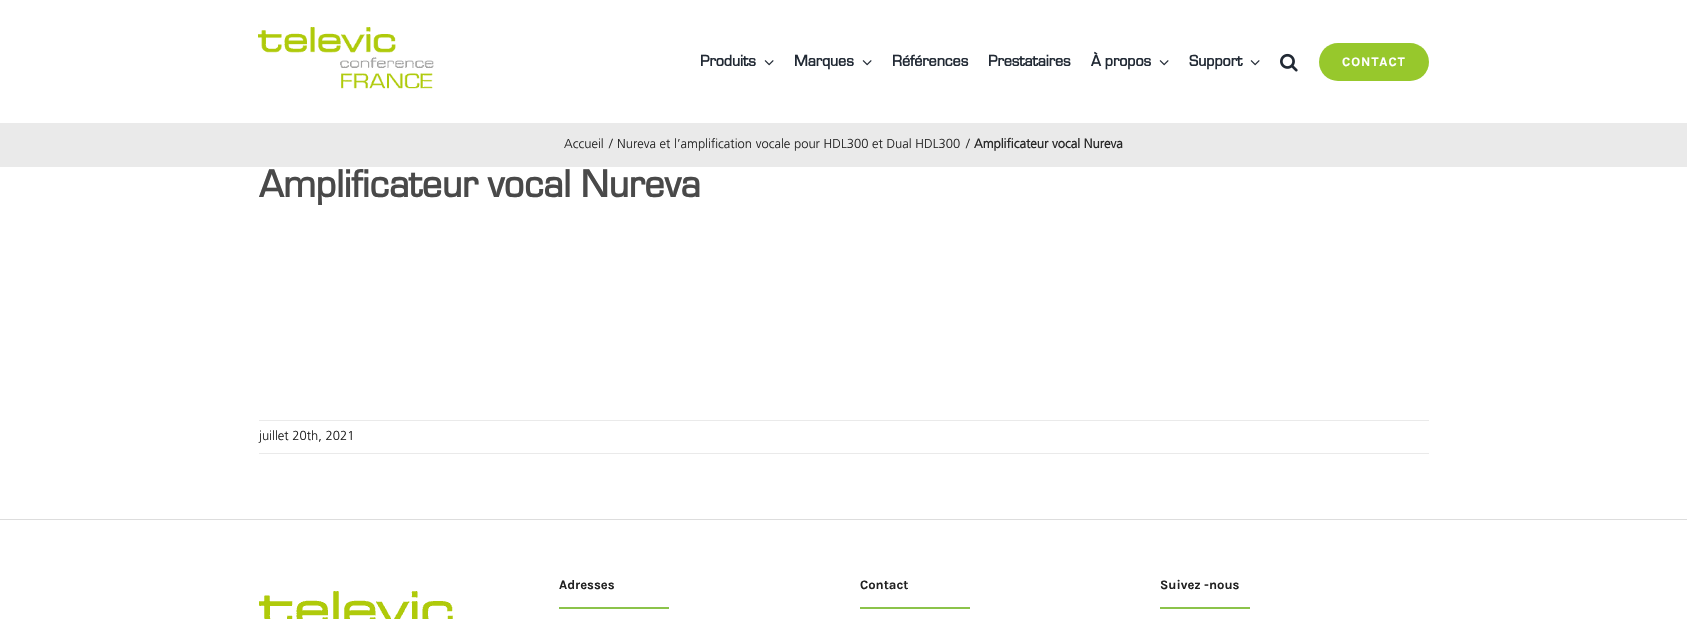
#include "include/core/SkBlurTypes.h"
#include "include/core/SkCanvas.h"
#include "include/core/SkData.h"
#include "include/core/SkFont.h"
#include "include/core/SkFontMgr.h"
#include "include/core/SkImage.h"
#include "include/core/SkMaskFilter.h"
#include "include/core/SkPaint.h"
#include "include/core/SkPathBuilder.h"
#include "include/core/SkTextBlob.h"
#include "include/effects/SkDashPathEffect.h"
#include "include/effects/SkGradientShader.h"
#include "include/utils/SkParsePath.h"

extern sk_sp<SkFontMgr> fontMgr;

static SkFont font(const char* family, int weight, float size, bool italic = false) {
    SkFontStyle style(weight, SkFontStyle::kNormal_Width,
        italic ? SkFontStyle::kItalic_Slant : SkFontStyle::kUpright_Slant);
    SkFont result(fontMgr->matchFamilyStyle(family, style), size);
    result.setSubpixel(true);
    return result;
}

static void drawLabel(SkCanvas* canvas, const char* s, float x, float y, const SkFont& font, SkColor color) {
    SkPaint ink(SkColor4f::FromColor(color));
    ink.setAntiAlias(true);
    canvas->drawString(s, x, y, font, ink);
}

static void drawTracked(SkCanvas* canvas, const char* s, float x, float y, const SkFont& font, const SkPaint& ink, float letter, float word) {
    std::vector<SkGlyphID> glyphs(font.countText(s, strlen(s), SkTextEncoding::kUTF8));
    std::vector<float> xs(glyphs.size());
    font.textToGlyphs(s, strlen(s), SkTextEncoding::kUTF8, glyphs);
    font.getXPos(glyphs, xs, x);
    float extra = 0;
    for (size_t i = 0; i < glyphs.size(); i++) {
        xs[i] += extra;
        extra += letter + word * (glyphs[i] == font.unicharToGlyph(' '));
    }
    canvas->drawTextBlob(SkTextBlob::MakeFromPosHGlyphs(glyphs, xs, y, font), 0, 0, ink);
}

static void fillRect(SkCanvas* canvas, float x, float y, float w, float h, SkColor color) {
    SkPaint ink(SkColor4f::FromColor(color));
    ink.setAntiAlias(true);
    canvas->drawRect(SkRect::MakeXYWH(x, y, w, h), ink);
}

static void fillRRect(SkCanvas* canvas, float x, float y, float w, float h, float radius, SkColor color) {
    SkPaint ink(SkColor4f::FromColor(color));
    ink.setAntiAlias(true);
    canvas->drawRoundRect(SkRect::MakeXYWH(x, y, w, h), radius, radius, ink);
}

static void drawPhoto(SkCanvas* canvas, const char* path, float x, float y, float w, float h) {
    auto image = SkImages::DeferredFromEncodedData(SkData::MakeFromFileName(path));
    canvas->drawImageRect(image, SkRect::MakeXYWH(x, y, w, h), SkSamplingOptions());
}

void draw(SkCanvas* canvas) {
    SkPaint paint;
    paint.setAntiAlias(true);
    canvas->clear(0xFFFFFFFF);
    drawPhoto(canvas, "assets/img1.png", 258, 27, 176, 62);
    SkFont font1 = font("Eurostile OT", 700, 16);
    drawLabel(canvas, "Produits", 700, 66, font1, 0xFF212934);
    drawPhoto(canvas, "assets/img2.png", 764, 60, 10, 6);
    drawLabel(canvas, "Marques", 794, 66, font1, 0xFF212934);
    drawPhoto(canvas, "assets/img2.png", 862, 60, 10, 6);
    drawLabel(canvas, "Références", 892, 66, font1, 0xFF212934);
    drawLabel(canvas, "Prestataires", 988, 66, font1, 0xFF212934);
    drawLabel(canvas, "À propos", 1091, 66, font1, 0xFF212934);
    drawPhoto(canvas, "assets/img2.png", 1159, 60, 10, 6);
    drawLabel(canvas, "Support", 1189, 66, font1, 0xFF212934);
    drawPhoto(canvas, "assets/img2.png", 1250, 60, 10, 6);
    drawPhoto(canvas, "assets/img3.png", 1280, 53, 18, 19);
    fillRRect(canvas, 1319, 43, 110, 38, 19, 0xFF97C82C);
    SkFont font2 = font("Karla", 700, 13);
    paint.setColor(0xFFFFFFFF);
    drawTracked(canvas, "CONTACT", 1342, 66, font2, paint, 1, 0);
    fillRect(canvas, 0, 123, 1687, 44, 0xFFEAEAEA);
    SkFont font3 = font("Frutiger", 300, 13);
    drawLabel(canvas, "Accueil", 564, 148, font3, 0xFF282828);
    drawLabel(canvas, "/", 609, 148, font3, 0xFF282828);
    drawLabel(canvas, "Nureva et l’amplification vocale pour HDL300 et Dual HDL300", 617, 148, font3, 0xFF282828);
    drawLabel(canvas, "/", 966, 148, font3, 0xFF282828);
    SkFont font4 = font("Frutiger", 700, 13);
    drawLabel(canvas, "Amplificateur vocal Nureva", 974, 148, font4, 0xFF282828);
    SkFont font5 = font("Eurostile OT", 700, 40);
    drawLabel(canvas, "Amplificateur vocal Nureva", 259, 197, font5, 0xFF494949);
    fillRect(canvas, 259, 420, 1170, 1, 0xFFEAEAEA);
    fillRect(canvas, 259, 453, 1170, 1, 0xFFEAEAEA);
    drawLabel(canvas, "juillet 20th, 2021", 259, 440, font3, 0xFF222222);
    fillRect(canvas, 0, 519, 1687, 1, 0xFFDDDDDD);
    drawLabel(canvas, "Adresses", 559, 589, font2, 0xFF222222);
    fillRect(canvas, 559, 607, 110, 2, 0xFF8BC34A);
    drawLabel(canvas, "Contact", 860, 589, font2, 0xFF222222);
    fillRect(canvas, 860, 607, 110, 2, 0xFF8BC34A);
    drawLabel(canvas, "Suivez -nous", 1160, 589, font2, 0xFF222222);
    fillRect(canvas, 1160, 607, 90, 2, 0xFF8BC34A);
    drawPhoto(canvas, "assets/img4.png", 259, 591, 194, 28);
}
